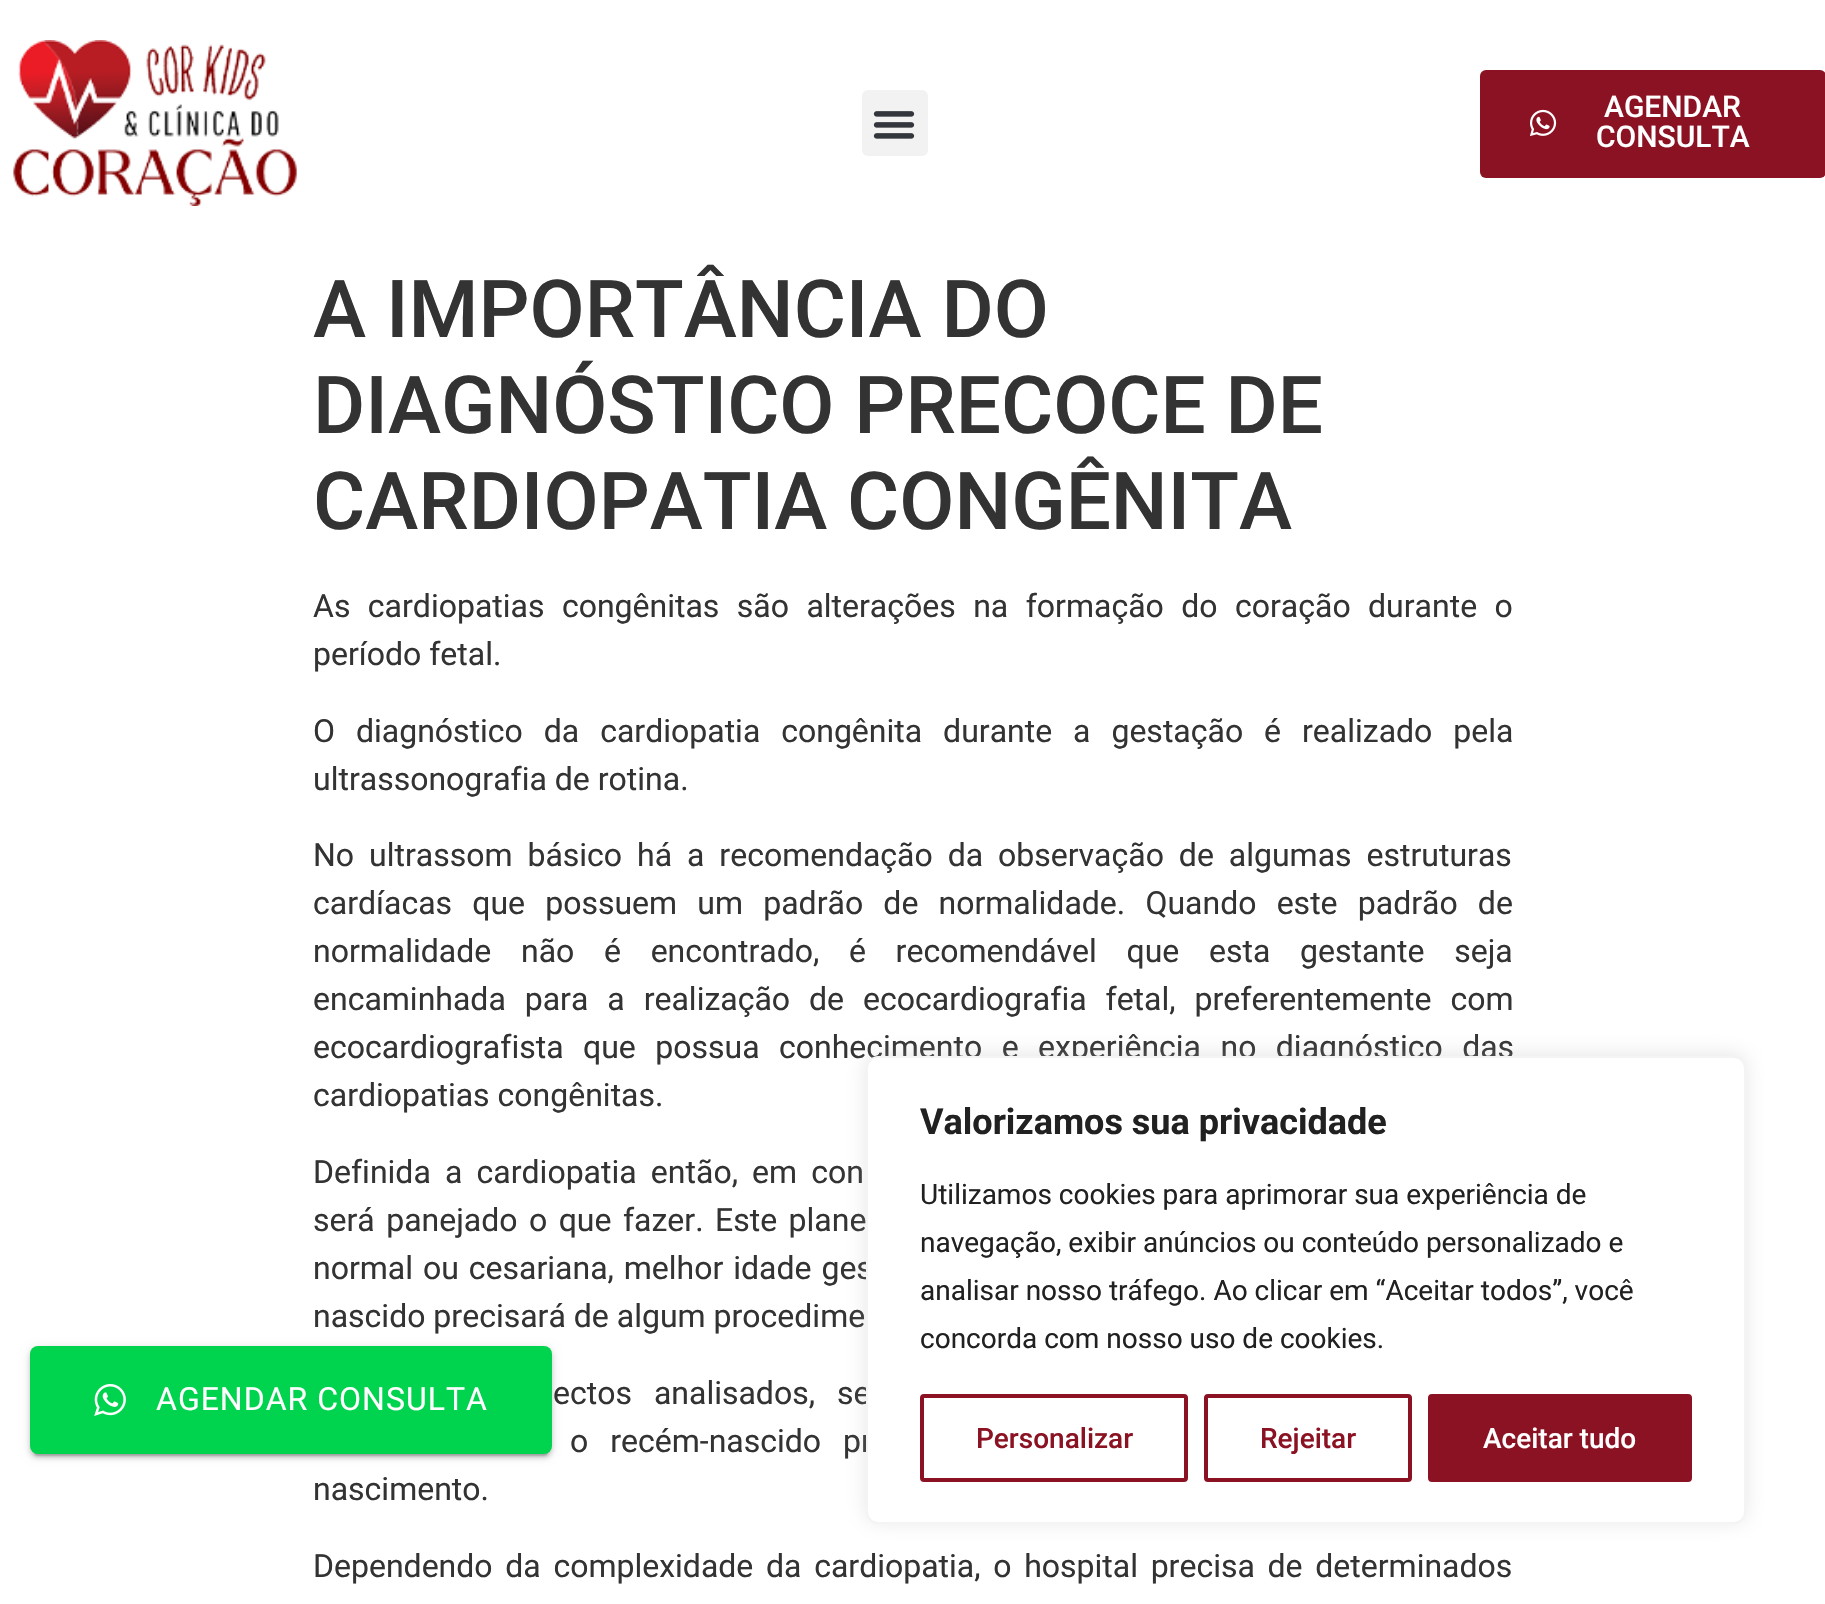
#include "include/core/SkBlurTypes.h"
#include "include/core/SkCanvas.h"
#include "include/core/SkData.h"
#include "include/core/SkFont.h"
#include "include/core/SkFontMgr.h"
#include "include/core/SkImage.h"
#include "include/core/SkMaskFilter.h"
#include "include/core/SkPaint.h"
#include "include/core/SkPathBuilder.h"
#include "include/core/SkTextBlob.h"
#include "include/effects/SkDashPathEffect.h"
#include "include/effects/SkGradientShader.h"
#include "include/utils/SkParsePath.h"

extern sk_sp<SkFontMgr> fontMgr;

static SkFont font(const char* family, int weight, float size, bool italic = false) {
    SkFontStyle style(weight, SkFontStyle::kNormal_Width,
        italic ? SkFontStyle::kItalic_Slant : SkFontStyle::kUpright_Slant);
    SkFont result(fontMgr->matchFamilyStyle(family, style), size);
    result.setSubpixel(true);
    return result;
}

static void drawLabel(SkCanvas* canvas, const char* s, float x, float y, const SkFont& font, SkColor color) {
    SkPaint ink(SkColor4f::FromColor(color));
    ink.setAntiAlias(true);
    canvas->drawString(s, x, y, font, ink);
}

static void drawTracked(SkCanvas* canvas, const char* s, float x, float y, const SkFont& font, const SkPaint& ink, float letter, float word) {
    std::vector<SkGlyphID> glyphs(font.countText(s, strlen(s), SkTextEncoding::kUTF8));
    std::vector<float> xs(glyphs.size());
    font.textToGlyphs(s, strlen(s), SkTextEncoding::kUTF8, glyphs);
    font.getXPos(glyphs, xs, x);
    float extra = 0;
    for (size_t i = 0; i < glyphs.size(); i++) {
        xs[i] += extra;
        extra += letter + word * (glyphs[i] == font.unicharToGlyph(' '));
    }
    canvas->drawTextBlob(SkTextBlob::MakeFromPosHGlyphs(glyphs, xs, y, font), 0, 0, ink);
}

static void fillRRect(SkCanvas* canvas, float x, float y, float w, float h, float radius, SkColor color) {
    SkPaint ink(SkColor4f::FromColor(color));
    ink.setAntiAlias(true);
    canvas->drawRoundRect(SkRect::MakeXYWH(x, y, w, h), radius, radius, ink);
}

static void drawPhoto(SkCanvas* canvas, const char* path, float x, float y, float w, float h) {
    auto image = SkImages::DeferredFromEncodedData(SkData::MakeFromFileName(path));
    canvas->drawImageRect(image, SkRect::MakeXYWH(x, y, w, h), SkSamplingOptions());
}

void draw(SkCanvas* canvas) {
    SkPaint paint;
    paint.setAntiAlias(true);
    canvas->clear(0xFFFFFFFF);
    drawPhoto(canvas, "assets/img1.png", 13, 40, 284, 166);
    fillRRect(canvas, 862, 90, 66, 66, 6, 0xFFF2F2F2);
    drawPhoto(canvas, "assets/img2.png", 873, 111, 42, 28);
    fillRRect(canvas, 1480, 70, 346, 108, 6, 0xFF8B1223);
    drawPhoto(canvas, "assets/img3.png", 1530, 109, 27, 27);
    SkFont font1 = font("Roboto", 500, 30);
    drawLabel(canvas, "AGENDAR", 1604, 117, font1, 0xFFFFFFFF);
    drawLabel(canvas, "CONSULTA", 1596, 147, font1, 0xFFFFFFFF);
    SkFont font2 = font("Roboto", 500, 80);
    drawLabel(canvas, "A IMPORTÂNCIA DO", 313, 337, font2, 0xFF333333);
    drawLabel(canvas, "DIAGNÓSTICO PRECOCE DE", 313, 433, font2, 0xFF333333);
    drawLabel(canvas, "CARDIOPATIA CONGÊNITA", 313, 529, font2, 0xFF333333);
    SkFont font3 = font("Roboto", 400, 32);
    paint.setColor(0xFF333333);
    drawTracked(canvas, "As cardiopatias congênitas são alterações na formação do coração durante o", 313, 617, font3, paint, 0, 9.5f);
    drawLabel(canvas, "período fetal.", 313, 665, font3, 0xFF333333);
    drawTracked(canvas, "O diagnóstico da cardiopatia congênita durante a gestação é realizado pela", 313, 742, font3, paint, 0, 13);
    drawLabel(canvas, "ultrassonografia de rotina.", 313, 790, font3, 0xFF333333);
    drawTracked(canvas, "No ultrassom básico há a recomendação da observação de algumas estruturas", 313, 866, font3, paint, 0, 7);
    drawTracked(canvas, "cardíacas que possuem um padrão de normalidade. Quando este padrão de", 313, 914, font3, paint, 0, 12.25f);
    drawTracked(canvas, "normalidade não é encontrado, é recomendável que esta gestante seja", 313, 962, font3, paint, 0, 21.75f);
    drawTracked(canvas, "encaminhada para a realização de ecocardiografia fetal, preferentemente com", 313, 1010, font3, paint, 0, 11);
    drawTracked(canvas, "ecocardiografista que possua conhecimento e experiência no diagnóstico das", 313, 1058, font3, paint, 0, 11.5f);
    drawLabel(canvas, "cardiopatias congênitas.", 313, 1106, font3, 0xFF333333);
    drawTracked(canvas, "Definida a cardiopatia então, em con", 313, 1183, font3, paint, 0, 6.25f);
    drawTracked(canvas, "será panejado o que fazer. Este plane", 313, 1231, font3, paint, 0, 3.5f);
    drawTracked(canvas, "normal ou cesariana, melhor idade ges", 313, 1279, font3, paint, 0, 2);
    drawLabel(canvas, "nascido precisará de algum procedime", 313, 1327, font3, 0xFF333333);
    drawTracked(canvas, "ectos analisados, se", 553, 1404, font3, paint, 0, 14);
    drawTracked(canvas, "o recém-nascido pr", 570, 1452, font3, paint, 0, 14);
    drawLabel(canvas, "nascimento.", 313, 1500, font3, 0xFF333333);
    drawTracked(canvas, "Dependendo da complexidade da cardiopatia, o hospital precisa de determinados", 313, 1577, font3, paint, 0, 4.75f);
    paint.setColor(0x33000000);
    paint.setMaskFilter(SkMaskFilter::MakeBlur(kNormal_SkBlurStyle, 1));
    canvas->drawRoundRect(SkRect::MakeXYWH(34, 1356, 514, 100), 4, 4, paint);
    paint.setMaskFilter(nullptr);
    paint.setColor(0x1F000000);
    paint.setMaskFilter(SkMaskFilter::MakeBlur(kNormal_SkBlurStyle, 5));
    canvas->drawRoundRect(SkRect::MakeXYWH(30, 1348, 522, 108), 8, 8, paint);
    paint.setMaskFilter(nullptr);
    paint.setColor(0x24000000);
    paint.setMaskFilter(SkMaskFilter::MakeBlur(kNormal_SkBlurStyle, 2));
    canvas->drawRoundRect(SkRect::MakeXYWH(30, 1350, 522, 108), 8, 8, paint);
    paint.setMaskFilter(nullptr);
    fillRRect(canvas, 30, 1346, 522, 108, 8, 0xFF00D34D);
    drawPhoto(canvas, "assets/img4.png", 94, 1384, 32, 32);
    paint.setColor(0xFFFFFFFF);
    drawTracked(canvas, "AGENDAR CONSULTA", 156, 1410, font3, paint, 1, 0);
    paint.setColor(0x4DACABAB);
    paint.setMaskFilter(SkMaskFilter::MakeBlur(kNormal_SkBlurStyle, 10));
    canvas->drawRoundRect(SkRect::MakeXYWH(866, 1054, 880, 468), 12, 12, paint);
    paint.setMaskFilter(nullptr);
    paint.setColor(0xFFFFFFFF);
    canvas->drawRoundRect(SkRect::MakeXYWH(867, 1057, 878, 466), 11, 11, paint);
    paint.setStroke(true);
    paint.setStrokeWidth(2);
    paint.setColor(0xFFF4F4F4);
    canvas->drawRoundRect(SkRect::MakeXYWH(867, 1057, 878, 466), 11, 11, paint);
    SkFont font4 = font("Roboto", 700, 36);
    drawLabel(canvas, "Valorizamos sua privacidade", 920, 1134, font4, 0xFF212121);
    SkFont font5 = font("Roboto", 400, 28);
    drawLabel(canvas, "Utilizamos cookies para aprimorar sua experiência de", 920, 1204, font5, 0xFF212121);
    drawLabel(canvas, "navegação, exibir anúncios ou conteúdo personalizado e", 920, 1252, font5, 0xFF212121);
    drawLabel(canvas, "analisar nosso tráfego. Ao clicar em “Aceitar todos”, você", 920, 1300, font5, 0xFF212121);
    drawLabel(canvas, "concorda com nosso uso de cookies.", 920, 1348, font5, 0xFF212121);
    paint.setStrokeWidth(4);
    paint.setColor(0xFF8B1223);
    canvas->drawRoundRect(SkRect::MakeXYWH(922, 1396, 264, 84), 2, 2, paint);
    SkFont font6 = font("Roboto", 500, 28);
    drawLabel(canvas, "Personalizar", 976, 1448, font6, 0xFF8B1223);
    canvas->drawRoundRect(SkRect::MakeXYWH(1206, 1396, 204, 84), 2, 2, paint);
    drawLabel(canvas, "Rejeitar", 1260, 1448, font6, 0xFF8B1223);
    paint.setStroke(false);
    canvas->drawRoundRect(SkRect::MakeXYWH(1430, 1396, 260, 84), 2, 2, paint);
    paint.setStroke(true);
    canvas->drawRoundRect(SkRect::MakeXYWH(1430, 1396, 260, 84), 2, 2, paint);
    drawLabel(canvas, "Aceitar tudo", 1483, 1448, font6, 0xFFFFFFFF);
}
